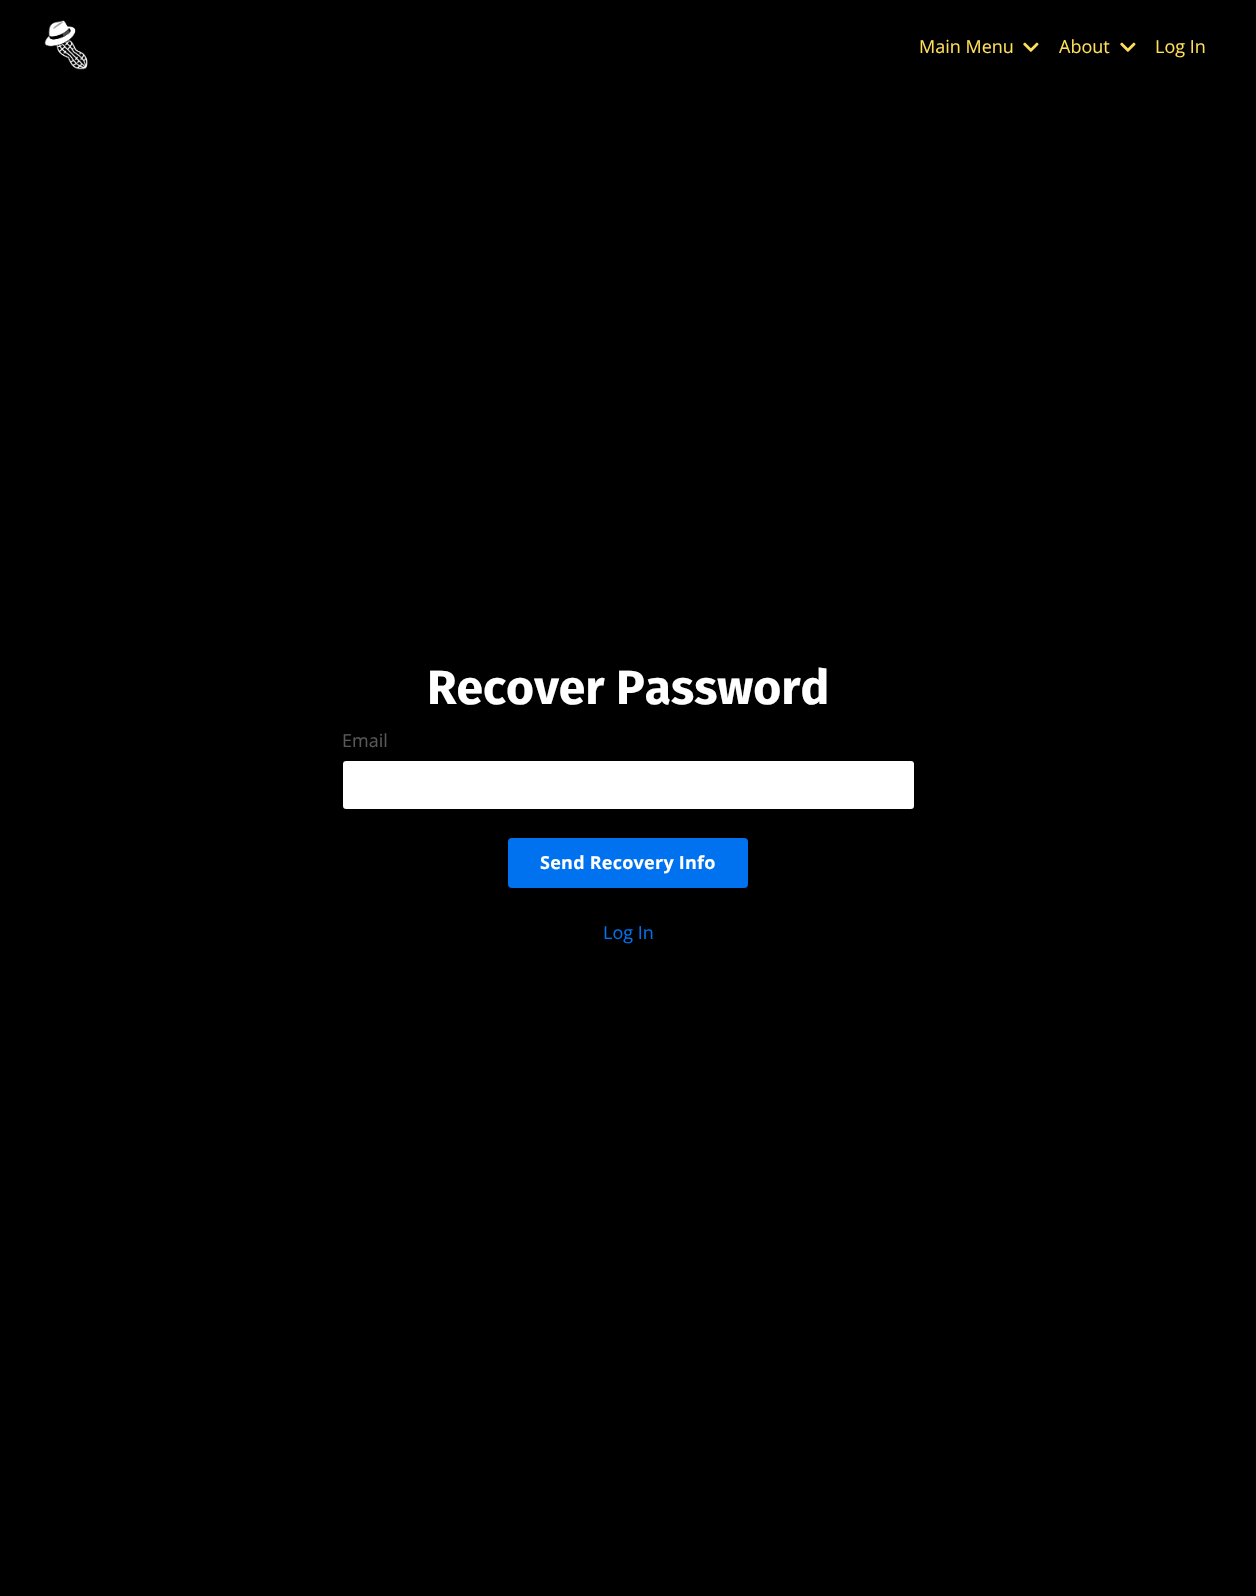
#include "include/core/SkBlurTypes.h"
#include "include/core/SkCanvas.h"
#include "include/core/SkData.h"
#include "include/core/SkFont.h"
#include "include/core/SkFontMgr.h"
#include "include/core/SkImage.h"
#include "include/core/SkMaskFilter.h"
#include "include/core/SkPaint.h"
#include "include/core/SkPathBuilder.h"
#include "include/core/SkTextBlob.h"
#include "include/effects/SkDashPathEffect.h"
#include "include/effects/SkGradientShader.h"
#include "include/utils/SkParsePath.h"

extern sk_sp<SkFontMgr> fontMgr;

static SkFont font(const char* family, int weight, float size, bool italic = false) {
    SkFontStyle style(weight, SkFontStyle::kNormal_Width,
        italic ? SkFontStyle::kItalic_Slant : SkFontStyle::kUpright_Slant);
    SkFont result(fontMgr->matchFamilyStyle(family, style), size);
    result.setSubpixel(true);
    return result;
}

static void drawLabel(SkCanvas* canvas, const char* s, float x, float y, const SkFont& font, SkColor color) {
    SkPaint ink(SkColor4f::FromColor(color));
    ink.setAntiAlias(true);
    canvas->drawString(s, x, y, font, ink);
}

static void drawTracked(SkCanvas* canvas, const char* s, float x, float y, const SkFont& font, const SkPaint& ink, float letter, float word) {
    std::vector<SkGlyphID> glyphs(font.countText(s, strlen(s), SkTextEncoding::kUTF8));
    std::vector<float> xs(glyphs.size());
    font.textToGlyphs(s, strlen(s), SkTextEncoding::kUTF8, glyphs);
    font.getXPos(glyphs, xs, x);
    float extra = 0;
    for (size_t i = 0; i < glyphs.size(); i++) {
        xs[i] += extra;
        extra += letter + word * (glyphs[i] == font.unicharToGlyph(' '));
    }
    canvas->drawTextBlob(SkTextBlob::MakeFromPosHGlyphs(glyphs, xs, y, font), 0, 0, ink);
}

static void fillRRect(SkCanvas* canvas, float x, float y, float w, float h, float radius, SkColor color) {
    SkPaint ink(SkColor4f::FromColor(color));
    ink.setAntiAlias(true);
    canvas->drawRoundRect(SkRect::MakeXYWH(x, y, w, h), radius, radius, ink);
}

static void drawPhoto(SkCanvas* canvas, const char* path, float x, float y, float w, float h) {
    auto image = SkImages::DeferredFromEncodedData(SkData::MakeFromFileName(path));
    canvas->drawImageRect(image, SkRect::MakeXYWH(x, y, w, h), SkSamplingOptions());
}

void draw(SkCanvas* canvas) {
    SkPaint paint;
    paint.setAntiAlias(true);
    canvas->clear(0xFF000000);
    drawPhoto(canvas, "assets/img1.png", 44, 20, 44, 50);
    SkFont font1 = font("Open Sans", 400, 18);
    drawLabel(canvas, "Main Menu", 919, 53, font1, 0xFFFFDE59);
    drawPhoto(canvas, "assets/img2.png", 1023, 42, 16, 10);
    drawLabel(canvas, "About", 1059, 53, font1, 0xFFFFDE59);
    drawPhoto(canvas, "assets/img2.png", 1120, 42, 16, 10);
    drawLabel(canvas, "Log In", 1155, 53, font1, 0xFFFFDE59);
    SkFont font2 = font("Fira Sans", 700, 48);
    drawLabel(canvas, "Recover Password", 427, 704, font2, 0xFFFFFFFF);
    drawLabel(canvas, "Email", 342, 747, font1, 0xFF595959);
    fillRRect(canvas, 343, 761, 571, 48, 3, 0xFFFFFFFF);
    paint.setStroke(true);
    paint.setStrokeWidth(1);
    paint.setColor(0x26000000);
    canvas->drawRoundRect(SkRect::MakeXYWH(342.5f, 760.5f, 572, 49), 3.5f, 3.5f, paint);
    paint.setStroke(false);
    paint.setColor(0xFF0072EF);
    canvas->drawRoundRect(SkRect::MakeXYWH(509, 839, 238, 48), 3, 3, paint);
    paint.setStroke(true);
    paint.setStrokeWidth(2);
    canvas->drawRoundRect(SkRect::MakeXYWH(509, 839, 238, 48), 3, 3, paint);
    SkFont font3 = font("Open Sans", 700, 18);
    paint.setStroke(false);
    paint.setColor(0xFFFFFFFF);
    drawTracked(canvas, "Send Recovery Info", 540, 869, font3, paint, 0.25f, 0);
    drawLabel(canvas, "Log In", 603, 939, font1, 0xFF0072EF);
}
